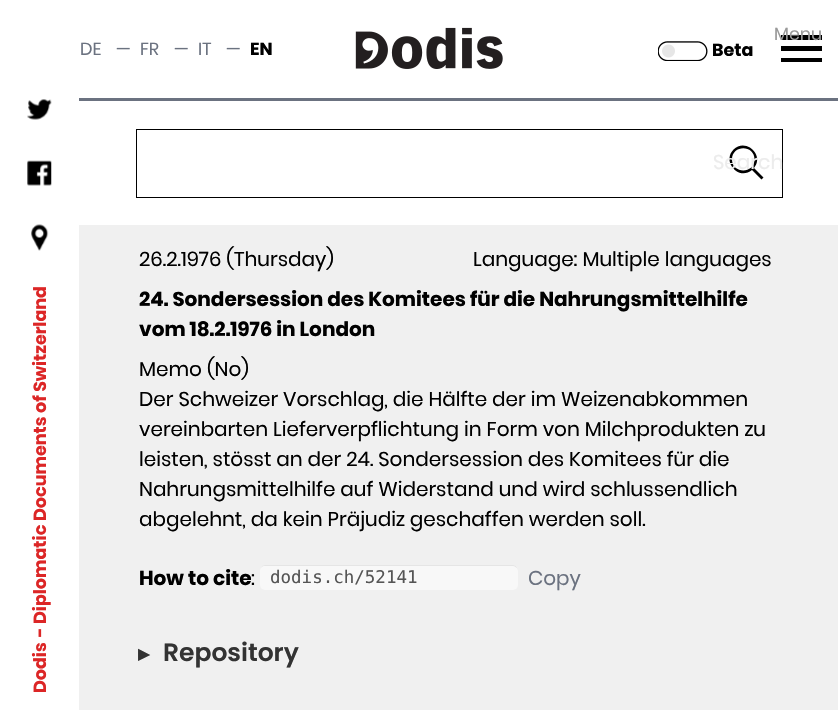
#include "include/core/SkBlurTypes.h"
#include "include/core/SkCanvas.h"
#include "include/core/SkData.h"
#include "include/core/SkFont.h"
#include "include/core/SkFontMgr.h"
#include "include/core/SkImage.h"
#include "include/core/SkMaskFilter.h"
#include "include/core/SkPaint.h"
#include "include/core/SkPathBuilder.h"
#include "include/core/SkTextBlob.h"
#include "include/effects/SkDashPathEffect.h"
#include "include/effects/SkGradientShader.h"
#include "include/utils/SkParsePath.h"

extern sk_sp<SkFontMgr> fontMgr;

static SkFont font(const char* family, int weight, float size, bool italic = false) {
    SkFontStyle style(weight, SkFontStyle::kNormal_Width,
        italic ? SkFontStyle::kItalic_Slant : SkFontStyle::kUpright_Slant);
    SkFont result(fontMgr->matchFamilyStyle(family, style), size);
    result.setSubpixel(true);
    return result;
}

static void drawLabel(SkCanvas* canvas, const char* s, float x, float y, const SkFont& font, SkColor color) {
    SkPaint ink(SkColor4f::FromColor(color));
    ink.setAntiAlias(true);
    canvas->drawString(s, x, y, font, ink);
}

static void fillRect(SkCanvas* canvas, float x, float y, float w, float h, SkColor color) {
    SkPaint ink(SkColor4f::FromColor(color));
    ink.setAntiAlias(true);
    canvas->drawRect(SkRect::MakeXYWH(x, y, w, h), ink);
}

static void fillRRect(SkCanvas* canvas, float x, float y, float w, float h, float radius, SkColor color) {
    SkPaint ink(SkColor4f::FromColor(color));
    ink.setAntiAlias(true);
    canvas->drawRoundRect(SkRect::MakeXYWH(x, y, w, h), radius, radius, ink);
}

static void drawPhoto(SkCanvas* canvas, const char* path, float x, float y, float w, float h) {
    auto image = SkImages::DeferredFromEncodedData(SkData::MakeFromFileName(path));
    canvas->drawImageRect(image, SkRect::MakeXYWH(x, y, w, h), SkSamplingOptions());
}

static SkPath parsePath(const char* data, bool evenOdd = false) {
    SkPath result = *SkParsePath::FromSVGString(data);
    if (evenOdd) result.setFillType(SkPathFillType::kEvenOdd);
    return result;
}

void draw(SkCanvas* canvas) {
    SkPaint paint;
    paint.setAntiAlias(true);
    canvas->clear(0xFFFFFFFF);
    fillRect(canvas, 79, 98, 759, 3, 0xFF6B7280);
    SkFont font1 = font("Poppins", 400, 17.5f);
    drawLabel(canvas, "DE", 80, 55, font1, 0xFF6B7280);
    drawLabel(canvas, "—", 116, 55, font1, 0xFF6B7280);
    drawLabel(canvas, "FR", 140, 55, font1, 0xFF6B7280);
    drawLabel(canvas, "—", 174, 55, font1, 0xFF6B7280);
    drawLabel(canvas, "IT", 198, 55, font1, 0xFF6B7280);
    drawLabel(canvas, "—", 226, 55, font1, 0xFF6B7280);
    SkFont font2 = font("Poppins", 700, 17.5f);
    drawLabel(canvas, "EN", 250, 55, font2, 0xFF000000);
    drawPhoto(canvas, "assets/img1.png", 355, 27, 148, 42);
    paint.setColor(0xFF000000);
    canvas->drawPath(parsePath("M822 62H781V58H822ZM822 51H781V46H822ZM822 40H781V35H822Z"), paint);
    drawLabel(canvas, "Menu", 774, 40, font1, 0xFF999999);
    drawPhoto(canvas, "assets/img2.png", 658, 41, 50, 20);
    drawLabel(canvas, "Beta", 712, 56, font2, 0xFF000000);
    drawPhoto(canvas, "assets/img3.png", 27, 99, 25, 21);
    drawPhoto(canvas, "assets/img4.png", 27, 160, 25, 26);
    drawPhoto(canvas, "assets/img5.png", 31, 224, 18, 27);
    canvas->save();
    canvas->rotate(-90, 46, 637);
    drawLabel(canvas, "- Diplomatic Documents of Switzerland", 46, 637, font2, 0xFFDC2626);
    canvas->restore();
    canvas->save();
    canvas->rotate(-90, 46, 693);
    drawLabel(canvas, "Dodis", 46, 693, font2, 0xFFDC2626);
    canvas->restore();
    paint.setStroke(true);
    paint.setStrokeWidth(1);
    canvas->drawRect(SkRect::MakeXYWH(136.5f, 129.5f, 646, 68), paint);
    paint.setStroke(false);
    canvas->drawPath(parsePath("M763.5 177.5L754 168C765 155 745.5 137.5 733.5 149.5C721.5 162 739 181 752 170L761.5 179.5ZM732 159.5C732 144.5 754.5 144.5 754.5 159.5C754.5 174 732 174 732 159.5Z"), paint);
    SkFont font3 = font("Poppins", 400, 20);
    drawLabel(canvas, "Search", 713, 169, font3, 0xFFECECEC);
    fillRect(canvas, 79, 225, 759, 485, 0xFFF0F0F0);
    drawLabel(canvas, "26.2.1976 (Thursday)", 139, 266, font3, 0xFF000000);
    drawLabel(canvas, "Language: Multiple languages", 473, 266, font3, 0xFF000000);
    SkFont font4 = font("Poppins", 700, 20);
    drawLabel(canvas, "24. Sondersession des Komitees für die Nahrungsmittelhilfe", 139, 306, font4, 0xFF000000);
    drawLabel(canvas, "vom 18.2.1976 in London", 139, 336, font4, 0xFF000000);
    drawLabel(canvas, "Memo (No)", 139, 376, font3, 0xFF000000);
    drawLabel(canvas, "Der Schweizer Vorschlag, die Hälfte der im Weizenabkommen", 139, 406, font3, 0xFF000000);
    drawLabel(canvas, "vereinbarten Lieferverpflichtung in Form von Milchprodukten zu", 139, 436, font3, 0xFF000000);
    drawLabel(canvas, "leisten, stösst an der 24. Sondersession des Komitees für die", 139, 466, font3, 0xFF000000);
    drawLabel(canvas, "Nahrungsmittelhilfe auf Widerstand und wird schlussendlich", 139, 496, font3, 0xFF000000);
    drawLabel(canvas, "abgelehnt, da kein Präjudiz geschaffen werden soll.", 139, 526, font3, 0xFF000000);
    drawLabel(canvas, "How to cite", 139, 585, font4, 0xFF000000);
    drawLabel(canvas, ":", 251, 585, font3, 0xFF000000);
    fillRRect(canvas, 260, 565, 258, 25, 5, 0xFFF8F8F8);
    paint.setColor(0xFFE5E5E5);
    canvas->drawPath(parsePath("M265 566H512C515 566 518 568 518 571C518 568 516 565 513 565H265C262 565 260 568 260 571C260 568 262 566 265 566Z"), paint);
    SkFont font5 = font("DejaVu Sans Mono", 400, 17.5f);
    drawLabel(canvas, "dodis.ch/52141", 270, 583, font5, 0xFF555555);
    drawLabel(canvas, "Copy", 528, 585, font3, 0xFF6B7280);
    SkFont font6 = font("DejaVu Sans", 700, 15);
    drawLabel(canvas, "▶", 138, 659, font6, 0xFF333333);
    SkFont font7 = font("Poppins", 600, 25);
    drawLabel(canvas, "Repository", 163, 661, font7, 0xFF333333);
}
